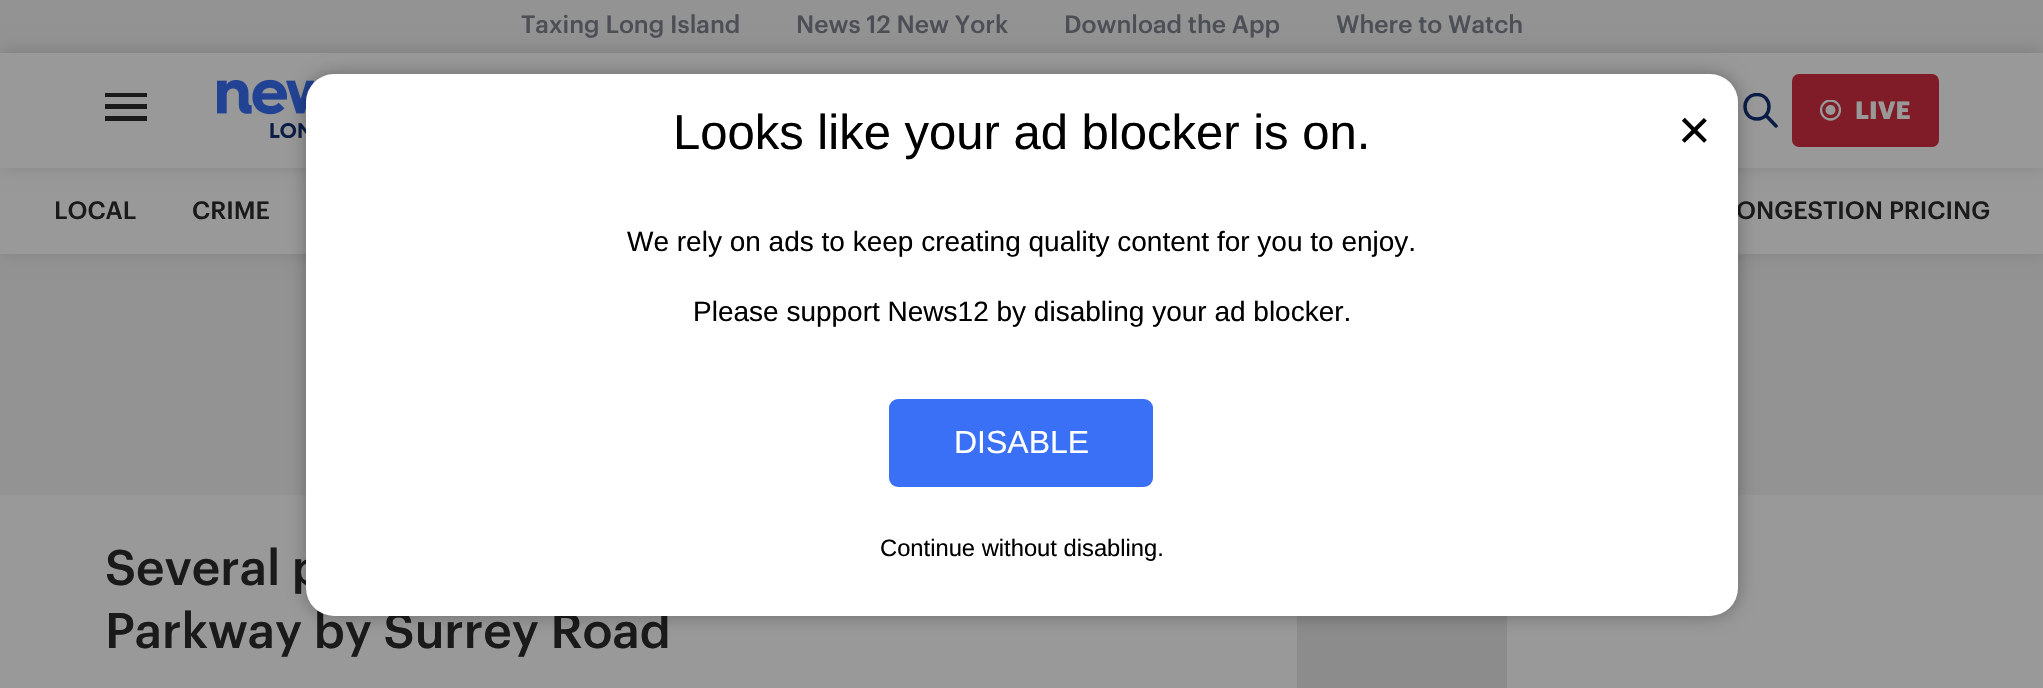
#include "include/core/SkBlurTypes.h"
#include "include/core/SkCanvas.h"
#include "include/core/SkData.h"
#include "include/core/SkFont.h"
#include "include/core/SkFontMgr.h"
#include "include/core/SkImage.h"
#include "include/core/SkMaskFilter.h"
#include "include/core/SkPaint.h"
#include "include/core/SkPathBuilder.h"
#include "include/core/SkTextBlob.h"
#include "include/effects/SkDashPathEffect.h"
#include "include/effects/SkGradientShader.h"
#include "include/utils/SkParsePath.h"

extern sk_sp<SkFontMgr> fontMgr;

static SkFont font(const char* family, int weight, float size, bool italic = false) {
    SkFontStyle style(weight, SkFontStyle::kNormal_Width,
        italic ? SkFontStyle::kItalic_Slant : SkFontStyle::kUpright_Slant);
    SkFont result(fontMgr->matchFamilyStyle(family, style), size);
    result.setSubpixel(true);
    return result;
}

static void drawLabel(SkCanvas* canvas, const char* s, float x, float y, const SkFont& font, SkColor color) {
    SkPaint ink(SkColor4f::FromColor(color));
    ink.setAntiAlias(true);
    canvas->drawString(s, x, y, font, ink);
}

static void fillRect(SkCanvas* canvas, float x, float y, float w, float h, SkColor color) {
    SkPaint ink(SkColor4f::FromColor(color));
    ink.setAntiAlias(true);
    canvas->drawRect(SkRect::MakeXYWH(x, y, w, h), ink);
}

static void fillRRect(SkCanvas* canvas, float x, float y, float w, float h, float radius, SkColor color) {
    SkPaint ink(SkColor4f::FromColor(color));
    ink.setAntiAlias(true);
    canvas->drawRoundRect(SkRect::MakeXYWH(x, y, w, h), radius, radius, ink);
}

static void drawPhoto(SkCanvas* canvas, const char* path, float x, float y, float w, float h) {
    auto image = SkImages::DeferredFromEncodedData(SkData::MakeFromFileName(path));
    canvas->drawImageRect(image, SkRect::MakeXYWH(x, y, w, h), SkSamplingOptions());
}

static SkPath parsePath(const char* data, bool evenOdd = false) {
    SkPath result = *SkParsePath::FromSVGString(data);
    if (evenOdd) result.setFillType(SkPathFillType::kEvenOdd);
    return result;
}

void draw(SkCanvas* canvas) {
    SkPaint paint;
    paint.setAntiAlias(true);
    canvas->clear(0xFF999999);
    fillRect(canvas, 0, 254, 2043, 241, 0xFF939393);
    paint.setColor(0x26000000);
    paint.setMaskFilter(SkMaskFilter::MakeBlur(kNormal_SkBlurStyle, 9));
    canvas->drawRect(SkRect::MakeXYWH(0, -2, 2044, 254), paint);
    paint.setMaskFilter(nullptr);
    fillRect(canvas, 0, 53, 2043, 201, 0xFF999999);
    fillRect(canvas, 0, 0, 2043, 53, 0xFF939393);
    SkFont font1 = font("Graphik", 500, 24.5f);
    drawLabel(canvas, "Taxing Long Island", 521, 33, font1, 0xFF4D4F56);
    drawLabel(canvas, "News 12 New York", 796, 33, font1, 0xFF4D4F56);
    drawLabel(canvas, "Download the App", 1064, 33, font1, 0xFF4D4F56);
    drawLabel(canvas, "Where to Watch", 1336, 33, font1, 0xFF4D4F56);
    canvas->save();
    canvas->clipPath(parsePath("M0 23H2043V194H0ZM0 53H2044V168H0Z", true), true);
    paint.setMaskFilter(SkMaskFilter::MakeBlur(kNormal_SkBlurStyle, 9));
    canvas->drawRect(SkRect::MakeXYWH(0, 51, 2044, 115), paint);
    paint.setMaskFilter(nullptr);
    canvas->restore();
    paint.setColor(0xFF1A1A1A);
    canvas->drawPath(parsePath("M105 97V93H147V97ZM105 109H147V104H105ZM105 121H147V116H105Z", true), paint);
    drawPhoto(canvas, "assets/img1.png", 217, 79, 98, 59);
    canvas->save();
    canvas->clipRect(SkRect::MakeXYWH(1743, 93, 35, 35));
    paint.setStroke(true);
    paint.setStrokeWidth(3.5f);
    paint.setStrokeCap(SkPaint::kRound_Cap);
    paint.setStrokeJoin(SkPaint::kRound_Join);
    paint.setColor(0xFF0B1D46);
    canvas->drawPath(parsePath("M1766 115.5L1776 126M1757 119C1741 119 1741 94.5 1757 94.5C1773 94.5 1773 119 1757 119Z"), paint);
    canvas->restore();
    fillRRect(canvas, 1792, 74, 147, 73, 7, 0xFF7F1C28);
    paint.setStroke(false);
    paint.setColor(0xFF999999);
    canvas->drawCircle(1830.5f, 110, 5, paint);
    canvas->save();
    canvas->clipRect(SkRect::MakeXYWH(1820, 100, 21, 21));
    paint.setStroke(true);
    paint.setStrokeWidth(2.3f);
    paint.setStrokeCap(SkPaint::kButt_Cap);
    paint.setStrokeJoin(SkPaint::kMiter_Join);
    canvas->drawCircle(1830.5f, 110, 9.5f, paint);
    canvas->restore();
    SkFont font2 = font("Graphik", 700, 24.5f);
    drawLabel(canvas, "LIVE", 1855, 119, font2, 0xFF999999);
    drawLabel(canvas, "LOCAL", 54, 219, font1, 0xFF1A1A1A);
    drawLabel(canvas, "CRIME", 192, 219, font1, 0xFF1A1A1A);
    drawLabel(canvas, "ONGESTION PRICING", 1736, 219, font1, 0xFF1A1A1A);
    SkFont font3 = font("Graphik", 500, 49);
    drawLabel(canvas, "Several p", 105, 585, font3, 0xFF1A1A1A);
    drawLabel(canvas, "Parkway by Surrey Road", 105, 648, font3, 0xFF1A1A1A);
    fillRect(canvas, 1297, 616, 210, 72, 0xFF8C8C8C);
    paint.setStroke(false);
    paint.setColor(0x4D000000);
    paint.setMaskFilter(SkMaskFilter::MakeBlur(kNormal_SkBlurStyle, 9));
    canvas->drawRoundRect(SkRect::MakeXYWH(306, 74, 1432, 542), 28, 28, paint);
    paint.setMaskFilter(nullptr);
    fillRRect(canvas, 306, 74, 1432, 542, 28, 0xFFFFFFFF);
    SkFont font4 = font("Liberation Sans", 400, 49);
    drawLabel(canvas, "Looks like your ad blocker is on.", 673, 149, font4, 0xFF000000);
    SkFont font5 = font("Liberation Sans", 400, 56);
    drawLabel(canvas, "×", 1678, 149, font5, 0xFF000000);
    SkFont font6 = font("Liberation Sans", 400, 28);
    drawLabel(canvas, "We rely on ads to keep creating quality content for you to enjoy.", 627, 251, font6, 0xFF000000);
    drawLabel(canvas, "Please support News12 by disabling your ad blocker.", 693, 321, font6, 0xFF000000);
    fillRRect(canvas, 889, 399, 264, 88, 9, 0xFF3970F6);
    SkFont font7 = font("Liberation Sans", 400, 32);
    drawLabel(canvas, "DISABLE", 954, 453, font7, 0xFFFFFFFF);
    SkFont font8 = font("Liberation Sans", 400, 23.75f);
    drawLabel(canvas, "Continue without disabling.", 880, 556, font8, 0xFF000000);
}
